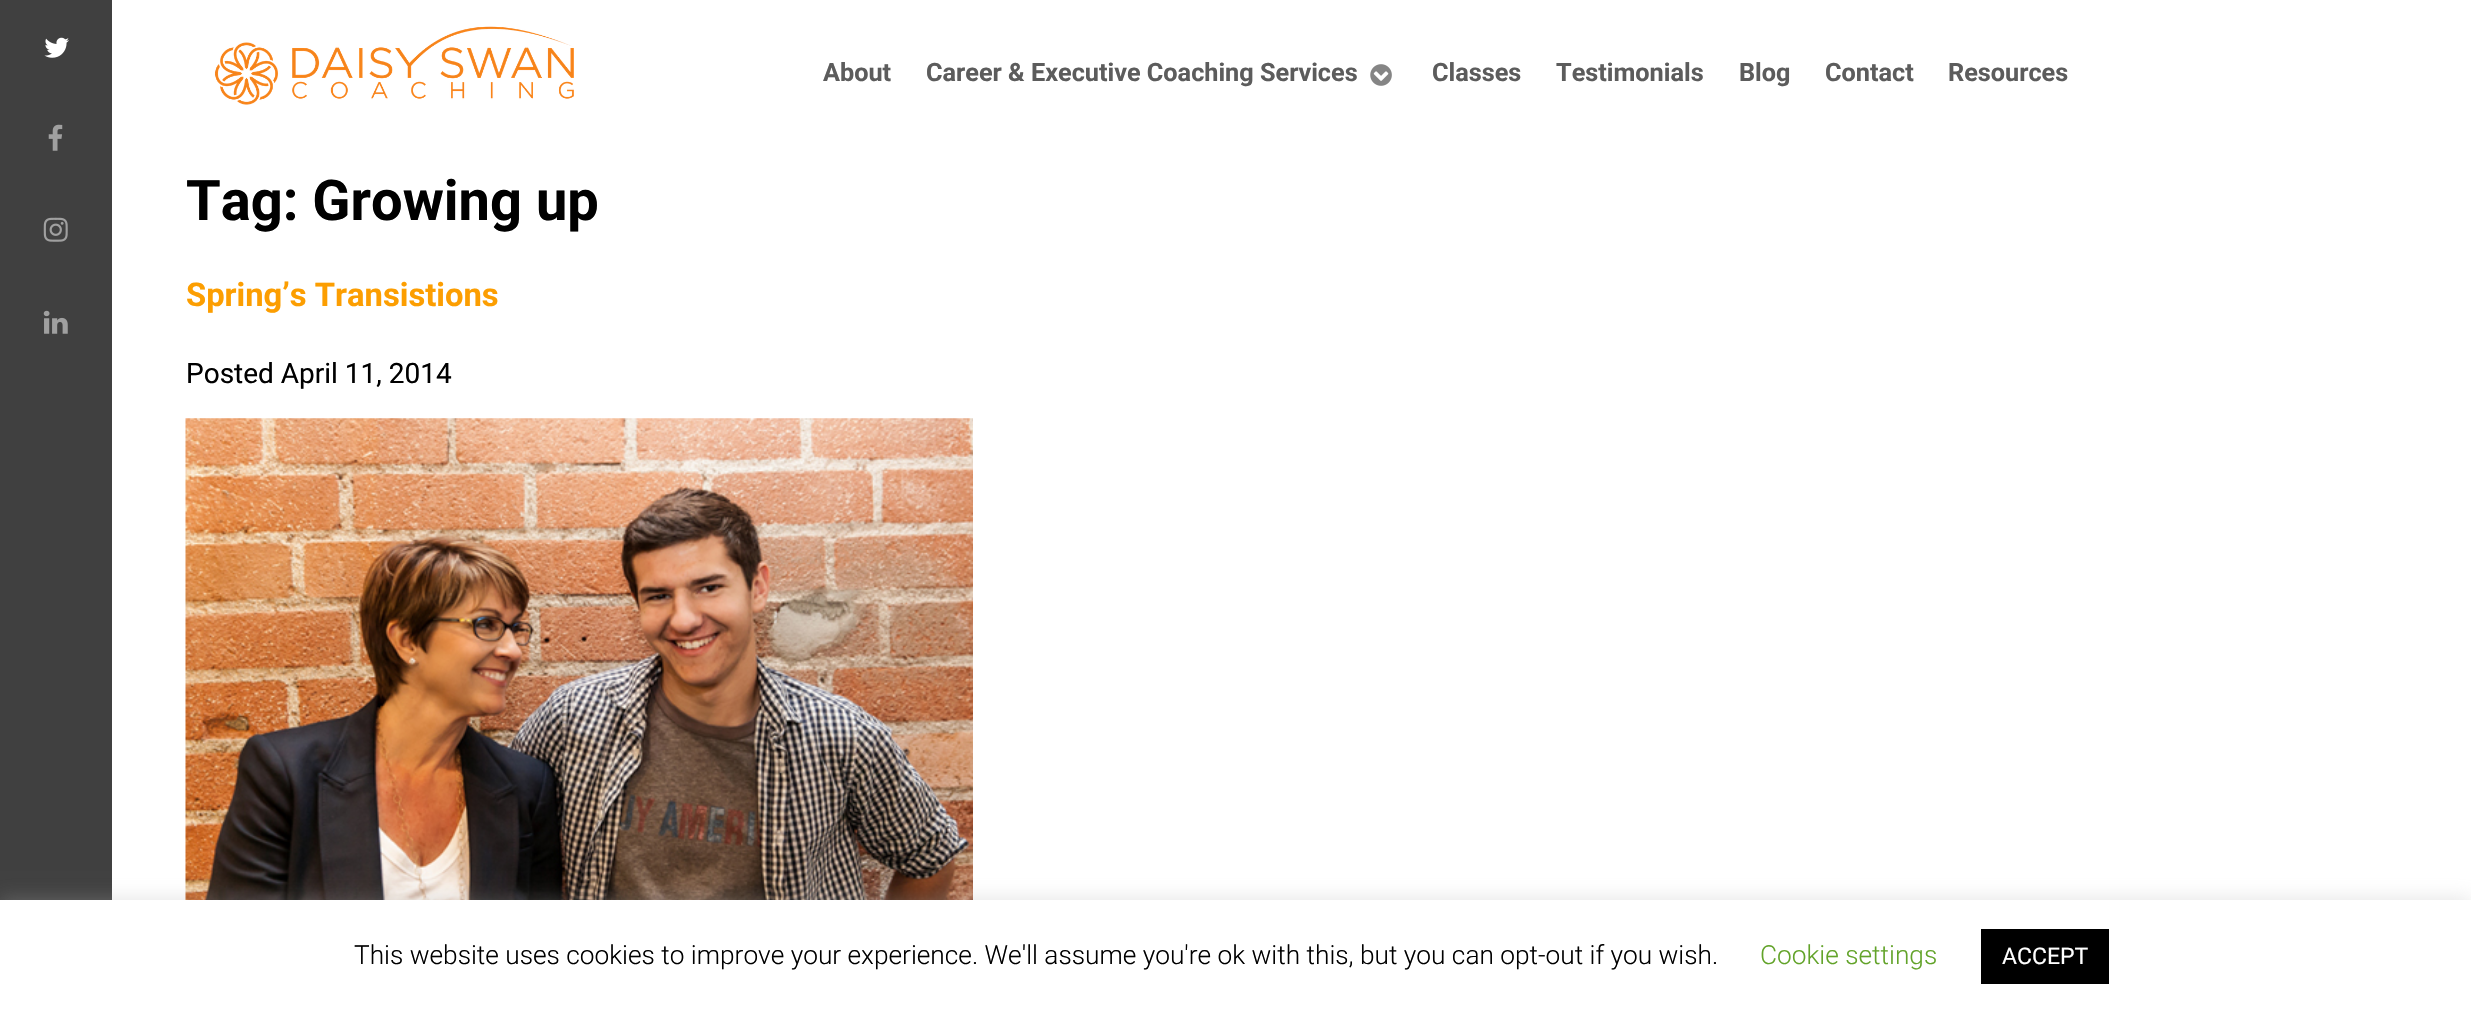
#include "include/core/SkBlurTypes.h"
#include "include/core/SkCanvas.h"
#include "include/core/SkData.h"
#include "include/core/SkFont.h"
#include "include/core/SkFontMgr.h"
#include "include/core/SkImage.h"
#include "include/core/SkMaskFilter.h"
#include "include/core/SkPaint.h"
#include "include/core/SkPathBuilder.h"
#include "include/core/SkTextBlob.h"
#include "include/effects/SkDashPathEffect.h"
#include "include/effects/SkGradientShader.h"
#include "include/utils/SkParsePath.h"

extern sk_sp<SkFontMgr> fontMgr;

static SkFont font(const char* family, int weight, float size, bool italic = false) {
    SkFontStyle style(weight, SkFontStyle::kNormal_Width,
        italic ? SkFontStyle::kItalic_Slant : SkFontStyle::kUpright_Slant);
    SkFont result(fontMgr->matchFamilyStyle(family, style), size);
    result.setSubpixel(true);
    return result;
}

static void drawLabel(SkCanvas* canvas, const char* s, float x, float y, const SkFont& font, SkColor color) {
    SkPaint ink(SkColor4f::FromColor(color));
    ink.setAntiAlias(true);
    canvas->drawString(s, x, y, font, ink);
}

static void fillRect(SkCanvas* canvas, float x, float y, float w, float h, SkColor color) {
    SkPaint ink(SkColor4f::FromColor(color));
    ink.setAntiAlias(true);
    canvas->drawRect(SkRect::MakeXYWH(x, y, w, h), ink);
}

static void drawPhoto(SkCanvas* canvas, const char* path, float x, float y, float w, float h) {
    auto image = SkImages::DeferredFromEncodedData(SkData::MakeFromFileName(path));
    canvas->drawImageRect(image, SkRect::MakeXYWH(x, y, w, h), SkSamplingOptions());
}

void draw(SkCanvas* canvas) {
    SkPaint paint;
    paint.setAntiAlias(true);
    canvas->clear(0xFFFFFFFF);
    fillRect(canvas, 0, 0, 112, 900, 0xFF404040);
    drawPhoto(canvas, "assets/img1.png", 44, 37, 25, 21);
    drawPhoto(canvas, "assets/img2.png", 48, 124, 15, 27);
    drawPhoto(canvas, "assets/img3.png", 43, 217, 25, 25);
    drawPhoto(canvas, "assets/img4.png", 43, 310, 25, 24);
    drawPhoto(canvas, "assets/img5.png", 214, 26, 360, 79);
    SkFont font1 = font("Roboto", 700, 25.25f);
    drawLabel(canvas, "About", 823, 81, font1, 0xFF5C5C5C);
    drawLabel(canvas, "Career & Executive Coaching Services", 926, 81, font1, 0xFF5C5C5C);
    drawPhoto(canvas, "assets/img6.png", 1370, 64, 22, 22);
    drawLabel(canvas, "Classes", 1432, 81, font1, 0xFF5C5C5C);
    drawLabel(canvas, "Testimonials", 1556, 81, font1, 0xFF5C5C5C);
    drawLabel(canvas, "Blog", 1739, 81, font1, 0xFF5C5C5C);
    drawLabel(canvas, "Contact", 1825, 81, font1, 0xFF5C5C5C);
    drawLabel(canvas, "Resources", 1948, 81, font1, 0xFF5C5C5C);
    SkFont font2 = font("Roboto", 700, 56);
    drawLabel(canvas, "Tag: Growing up", 186, 220, font2, 0xFF000000);
    SkFont font3 = font("Roboto", 700, 32.75f);
    drawLabel(canvas, "Spring’s Transistions", 186, 306, font3, 0xFFFC9E01);
    SkFont font4 = font("Roboto", 400, 28);
    drawLabel(canvas, "Posted April 11, 2014", 186, 383, font4, 0xFF000000);
    drawPhoto(canvas, "assets/img7.png", 185, 418, 788, 482);
    paint.setColor(0x4DACABAB);
    paint.setMaskFilter(SkMaskFilter::MakeBlur(kNormal_SkBlurStyle, 9));
    canvas->drawRect(SkRect::MakeXYWH(0, 898, 2471, 114), paint);
    paint.setMaskFilter(nullptr);
    fillRect(canvas, 0, 900, 2471, 113, 0xFFFFFFFF);
    SkFont font5 = font("Roboto", 300, 26.25f);
    drawLabel(canvas, "This website uses cookies to improve your experience. We'll assume you're ok with this, but you can opt-out if you wish.", 354, 964, font5, 0xFF000000);
    drawLabel(canvas, "Cookie settings", 1760, 964, font5, 0xFF62A329);
    fillRect(canvas, 1981, 929, 128, 55, 0xFF000000);
    SkFont font6 = font("Roboto", 400, 23);
    drawLabel(canvas, "ACCEPT", 2002, 964, font6, 0xFFFFFFFF);
}
